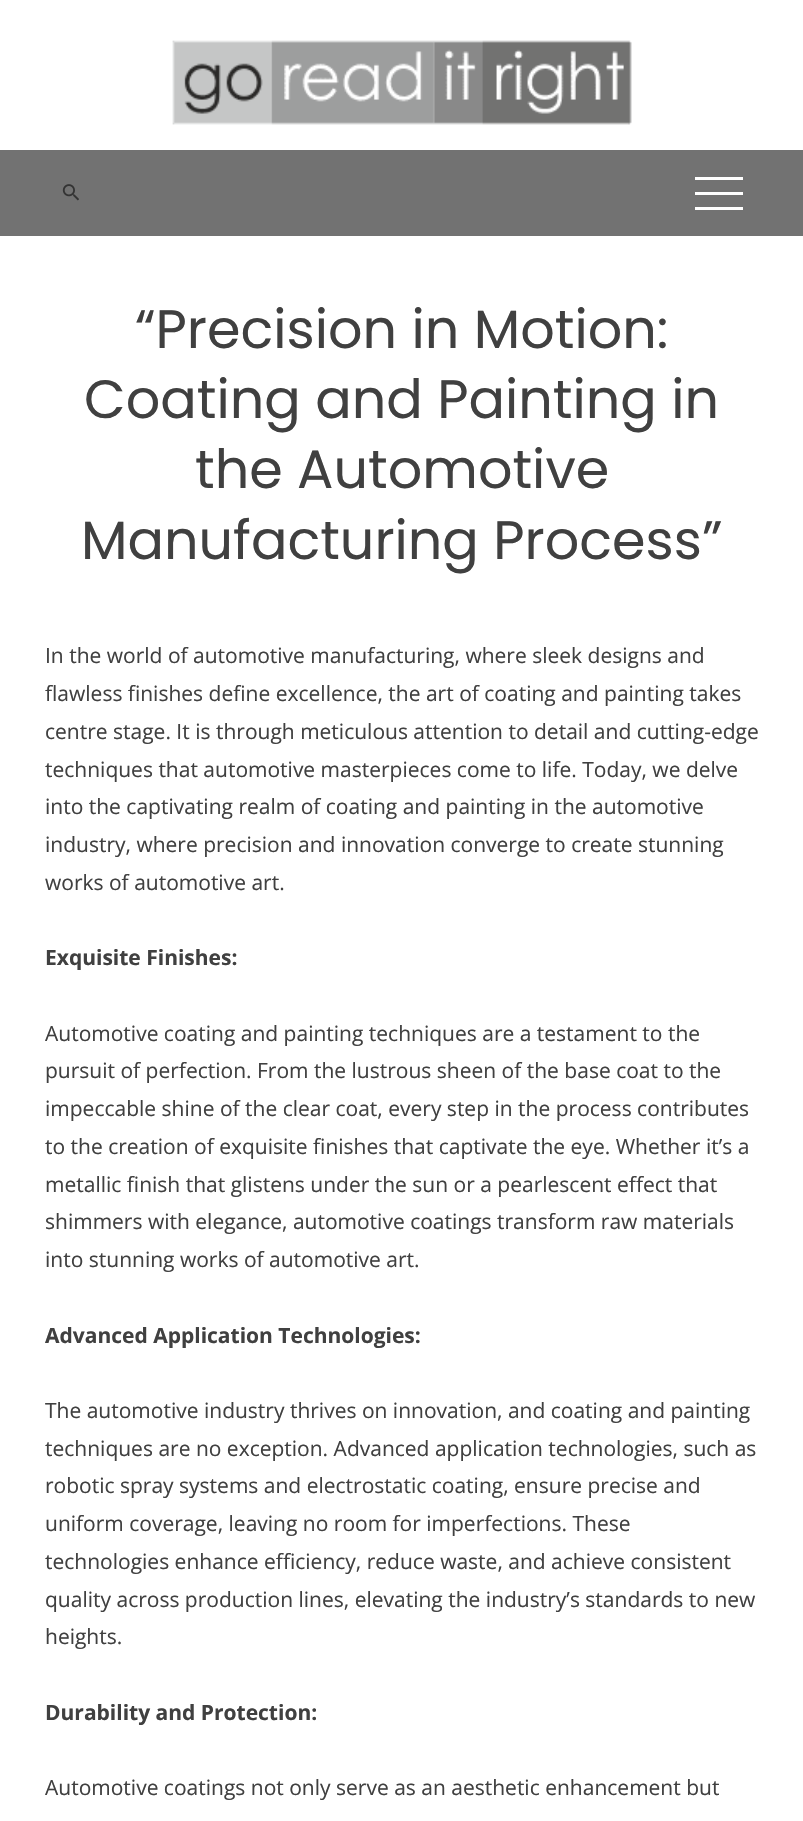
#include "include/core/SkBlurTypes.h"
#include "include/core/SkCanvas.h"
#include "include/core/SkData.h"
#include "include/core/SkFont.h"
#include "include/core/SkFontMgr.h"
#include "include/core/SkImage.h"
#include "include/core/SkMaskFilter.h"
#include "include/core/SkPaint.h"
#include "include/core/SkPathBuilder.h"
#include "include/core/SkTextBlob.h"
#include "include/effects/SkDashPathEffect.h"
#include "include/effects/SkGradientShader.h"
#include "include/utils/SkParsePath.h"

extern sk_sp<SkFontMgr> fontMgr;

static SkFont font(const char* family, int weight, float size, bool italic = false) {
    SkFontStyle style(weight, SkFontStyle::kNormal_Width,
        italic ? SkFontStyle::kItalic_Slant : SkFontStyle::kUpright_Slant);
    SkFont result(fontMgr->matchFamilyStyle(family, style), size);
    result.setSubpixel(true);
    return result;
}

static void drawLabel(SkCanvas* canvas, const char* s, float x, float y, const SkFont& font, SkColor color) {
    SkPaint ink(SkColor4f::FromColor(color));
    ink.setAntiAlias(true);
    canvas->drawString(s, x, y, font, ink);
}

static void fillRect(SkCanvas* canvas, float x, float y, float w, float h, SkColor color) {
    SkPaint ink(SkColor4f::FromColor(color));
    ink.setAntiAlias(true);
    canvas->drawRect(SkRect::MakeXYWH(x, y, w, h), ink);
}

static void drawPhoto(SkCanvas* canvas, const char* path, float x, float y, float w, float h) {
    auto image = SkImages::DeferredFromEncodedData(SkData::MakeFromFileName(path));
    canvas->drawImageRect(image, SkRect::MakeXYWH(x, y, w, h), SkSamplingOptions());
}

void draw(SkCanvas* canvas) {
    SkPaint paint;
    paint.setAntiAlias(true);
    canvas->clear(0xFFFFFFFF);
    drawPhoto(canvas, "assets/img1.png", 172, 40, 460, 85);
    fillRect(canvas, 0, 150, 803, 86, 0xFF727272);
    drawPhoto(canvas, "assets/img2.png", 62, 184, 17, 17);
    fillRect(canvas, 695, 177, 48, 3, 0xFFFFFFFF);
    fillRect(canvas, 695, 207, 48, 3, 0xFFFFFFFF);
    fillRect(canvas, 695, 192, 48, 3, 0xFFFFFFFF);
    SkFont font1 = font("Poppins", 400, 54);
    drawLabel(canvas, "“Precision in Motion:", 135, 348, font1, 0xFF404040);
    drawLabel(canvas, "Coating and Painting in", 84, 418, font1, 0xFF404040);
    drawLabel(canvas, "the Automotive", 195, 488, font1, 0xFF404040);
    drawLabel(canvas, "Manufacturing Process”", 81, 559, font1, 0xFF404040);
    SkFont font2 = font("Open Sans", 400, 21);
    drawLabel(canvas, "In the world of automotive manufacturing, where sleek designs and", 45, 663, font2, 0xFF404040);
    drawLabel(canvas, "flawless finishes define excellence, the art of coating and painting takes", 45, 701, font2, 0xFF404040);
    drawLabel(canvas, "centre stage. It is through meticulous attention to detail and cutting-edge", 45, 739, font2, 0xFF404040);
    drawLabel(canvas, "techniques that automotive masterpieces come to life. Today, we delve", 45, 777, font2, 0xFF404040);
    drawLabel(canvas, "into the captivating realm of coating and painting in the automotive", 45, 814, font2, 0xFF404040);
    drawLabel(canvas, "industry, where precision and innovation converge to create stunning", 45, 852, font2, 0xFF404040);
    drawLabel(canvas, "works of automotive art.", 45, 890, font2, 0xFF404040);
    SkFont font3 = font("Open Sans", 700, 21);
    drawLabel(canvas, "Exquisite Finishes:", 45, 965, font3, 0xFF404040);
    drawLabel(canvas, "Automotive coating and painting techniques are a testament to the", 45, 1041, font2, 0xFF404040);
    drawLabel(canvas, "pursuit of perfection. From the lustrous sheen of the base coat to the", 45, 1078, font2, 0xFF404040);
    drawLabel(canvas, "impeccable shine of the clear coat, every step in the process contributes", 45, 1116, font2, 0xFF404040);
    drawLabel(canvas, "to the creation of exquisite finishes that captivate the eye. Whether it’s a", 45, 1154, font2, 0xFF404040);
    drawLabel(canvas, "metallic finish that glistens under the sun or a pearlescent effect that", 45, 1192, font2, 0xFF404040);
    drawLabel(canvas, "shimmers with elegance, automotive coatings transform raw materials", 45, 1229, font2, 0xFF404040);
    drawLabel(canvas, "into stunning works of automotive art.", 45, 1267, font2, 0xFF404040);
    drawLabel(canvas, "Advanced Application Technologies:", 45, 1343, font3, 0xFF404040);
    drawLabel(canvas, "The automotive industry thrives on innovation, and coating and painting", 45, 1418, font2, 0xFF404040);
    drawLabel(canvas, "techniques are no exception. Advanced application technologies, such as", 45, 1456, font2, 0xFF404040);
    drawLabel(canvas, "robotic spray systems and electrostatic coating, ensure precise and", 45, 1493, font2, 0xFF404040);
    drawLabel(canvas, "uniform coverage, leaving no room for imperfections. These", 45, 1531, font2, 0xFF404040);
    drawLabel(canvas, "technologies enhance efficiency, reduce waste, and achieve consistent", 45, 1569, font2, 0xFF404040);
    drawLabel(canvas, "quality across production lines, elevating the industry’s standards to new", 45, 1607, font2, 0xFF404040);
    drawLabel(canvas, "heights.", 45, 1644, font2, 0xFF404040);
    drawLabel(canvas, "Durability and Protection:", 45, 1720, font3, 0xFF404040);
    drawLabel(canvas, "Automotive coatings not only serve as an aesthetic enhancement but", 45, 1795, font2, 0xFF404040);
}
